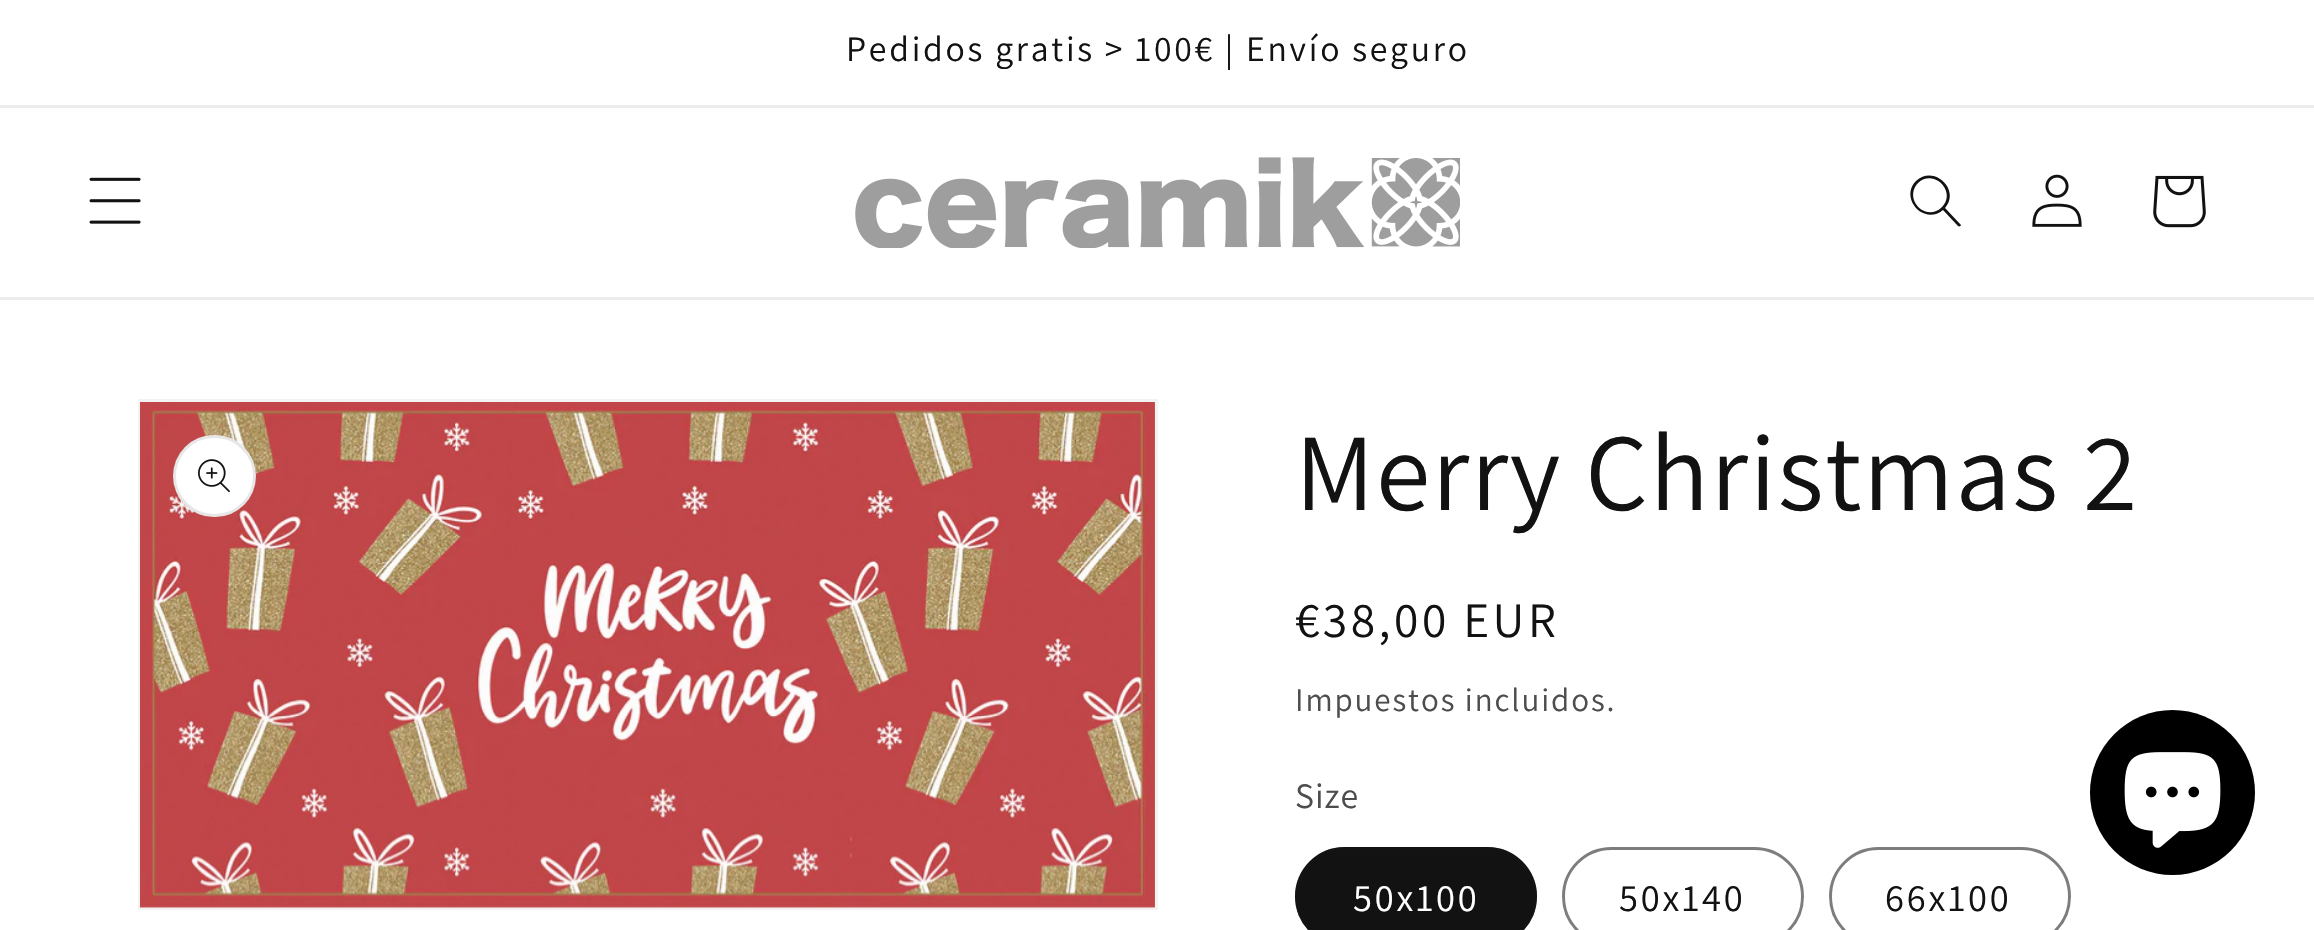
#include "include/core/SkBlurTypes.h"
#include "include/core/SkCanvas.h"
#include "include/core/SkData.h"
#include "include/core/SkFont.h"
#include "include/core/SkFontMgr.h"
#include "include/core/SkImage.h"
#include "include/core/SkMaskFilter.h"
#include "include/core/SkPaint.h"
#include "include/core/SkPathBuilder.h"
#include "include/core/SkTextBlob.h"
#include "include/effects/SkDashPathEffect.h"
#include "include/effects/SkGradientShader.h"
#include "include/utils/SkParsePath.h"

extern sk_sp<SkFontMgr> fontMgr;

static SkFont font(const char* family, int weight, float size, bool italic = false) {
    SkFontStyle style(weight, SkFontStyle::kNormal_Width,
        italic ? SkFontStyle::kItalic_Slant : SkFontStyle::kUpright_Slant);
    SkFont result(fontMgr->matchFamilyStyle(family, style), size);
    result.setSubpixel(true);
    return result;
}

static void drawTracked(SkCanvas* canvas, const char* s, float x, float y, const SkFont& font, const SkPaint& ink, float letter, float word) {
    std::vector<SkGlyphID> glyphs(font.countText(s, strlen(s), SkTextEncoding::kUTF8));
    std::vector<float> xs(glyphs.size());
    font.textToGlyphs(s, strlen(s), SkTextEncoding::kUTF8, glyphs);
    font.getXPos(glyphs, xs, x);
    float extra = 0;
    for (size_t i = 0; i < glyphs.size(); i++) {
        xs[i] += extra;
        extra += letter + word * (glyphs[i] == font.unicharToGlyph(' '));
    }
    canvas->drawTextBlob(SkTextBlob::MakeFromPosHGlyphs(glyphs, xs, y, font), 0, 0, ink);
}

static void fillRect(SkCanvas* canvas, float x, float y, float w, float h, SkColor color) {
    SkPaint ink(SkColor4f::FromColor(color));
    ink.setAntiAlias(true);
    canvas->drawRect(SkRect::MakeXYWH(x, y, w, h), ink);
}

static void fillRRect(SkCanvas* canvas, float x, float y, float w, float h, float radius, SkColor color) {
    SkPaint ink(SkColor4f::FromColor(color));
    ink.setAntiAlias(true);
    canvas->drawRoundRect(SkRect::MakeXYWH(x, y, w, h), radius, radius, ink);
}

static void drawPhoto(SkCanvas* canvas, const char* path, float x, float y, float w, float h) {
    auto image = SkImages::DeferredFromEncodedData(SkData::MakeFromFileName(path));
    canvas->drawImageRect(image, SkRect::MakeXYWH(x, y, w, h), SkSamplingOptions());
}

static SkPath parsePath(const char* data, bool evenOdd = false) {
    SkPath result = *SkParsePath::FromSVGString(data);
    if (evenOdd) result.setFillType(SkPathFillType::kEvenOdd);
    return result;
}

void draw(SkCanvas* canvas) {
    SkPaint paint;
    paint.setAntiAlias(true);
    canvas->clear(0xFFFFFFFF);
    fillRect(canvas, 0, 105, 2314, 3, 0xFFECECEC);
    SkFont font1 = font("Assistant", 400, 35.75f);
    paint.setColor(0xFF121212);
    drawTracked(canvas, "Pedidos gratis > 100€ | Envío seguro", 846, 61, font1, paint, 2.75f, 0);
    fillRect(canvas, 0, 297, 2314, 3, 0xFFECECEC);
    drawPhoto(canvas, "assets/img1.png", 89, 177, 52, 47);
    drawPhoto(canvas, "assets/img2.png", 855, 157, 605, 91);
    canvas->drawPath(parsePath("M1942 207C1926 223 1903 199 1918 183C1934 168 1957 192 1942 207M1943 210C1924 226 1899 198 1916 181C1934 164 1961 190 1945 208L1961 225C1961 226 1959 227 1958 226Z", true), paint);
    drawPhoto(canvas, "assets/img3.png", 2032, 174, 50, 53);
    drawPhoto(canvas, "assets/img4.png", 2153, 175, 53, 53);
    paint.setStroke(true);
    paint.setStrokeWidth(3);
    paint.setColor(0xFFF3F3F3);
    canvas->drawRect(SkRect::MakeXYWH(139.5f, 400.5f, 1017, 508), paint);
    drawPhoto(canvas, "assets/img5.png", 140, 402, 1015, 506);
    fillRRect(canvas, 173, 435, 83, 82, 41, 0xFFFFFFFF);
    paint.setColor(0x1A121212);
    canvas->drawRoundRect(SkRect::MakeXYWH(174.5f, 436.5f, 80, 79), 39.5f, 39.5f, paint);
    drawPhoto(canvas, "assets/img6.png", 198, 459, 32, 34);
    SkFont font2 = font("Assistant", 400, 110);
    paint.setStroke(false);
    paint.setColor(0xFF121212);
    drawTracked(canvas, "Merry Christmas 2", 1295, 510, font2, paint, 1.6f, 0);
    SkFont font3 = font("Assistant", 400, 49.5f);
    drawTracked(canvas, "€38,00 EUR", 1295, 637, font3, paint, 3.5f, 0);
    SkFont font4 = font("Assistant", 400, 33);
    paint.setColor(0xFF4D4D4D);
    drawTracked(canvas, "Impuestos incluidos.", 1295, 711, font4, paint, 1.9f, 0);
    drawTracked(canvas, "Size", 1295, 808, font1, paint, 1, 0);
    fillRRect(canvas, 1295, 847, 242, 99, 49.5f, 0xFF121212);
    paint.setStroke(true);
    paint.setColor(0x8C121212);
    canvas->drawRoundRect(SkRect::MakeXYWH(1296.5f, 848.5f, 239, 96), 48, 48, paint);
    SkFont font5 = font("Assistant", 400, 38.5f);
    paint.setStroke(false);
    paint.setColor(0xFFFFFFFF);
    drawTracked(canvas, "50x100", 1353, 911, font5, paint, 2.75f, 0);
    paint.setStroke(true);
    paint.setColor(0xFF7D7D7D);
    canvas->drawRoundRect(SkRect::MakeXYWH(1563.5f, 848.5f, 239, 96), 48, 48, paint);
    paint.setStroke(false);
    paint.setColor(0xFF121212);
    drawTracked(canvas, "50x140", 1619, 911, font5, paint, 2.75f, 0);
    paint.setStroke(true);
    paint.setColor(0xFF7D7D7D);
    canvas->drawRoundRect(SkRect::MakeXYWH(1830.5f, 848.5f, 239, 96), 48, 48, paint);
    paint.setStroke(false);
    paint.setColor(0xFF121212);
    drawTracked(canvas, "66x100", 1885, 911, font5, paint, 2.75f, 0);
    paint.setColor(0xFF000000);
    canvas->drawCircle(2172.5f, 792.5f, 82.5f, paint);
    drawPhoto(canvas, "assets/img7.png", 2124, 752, 97, 96);
}
